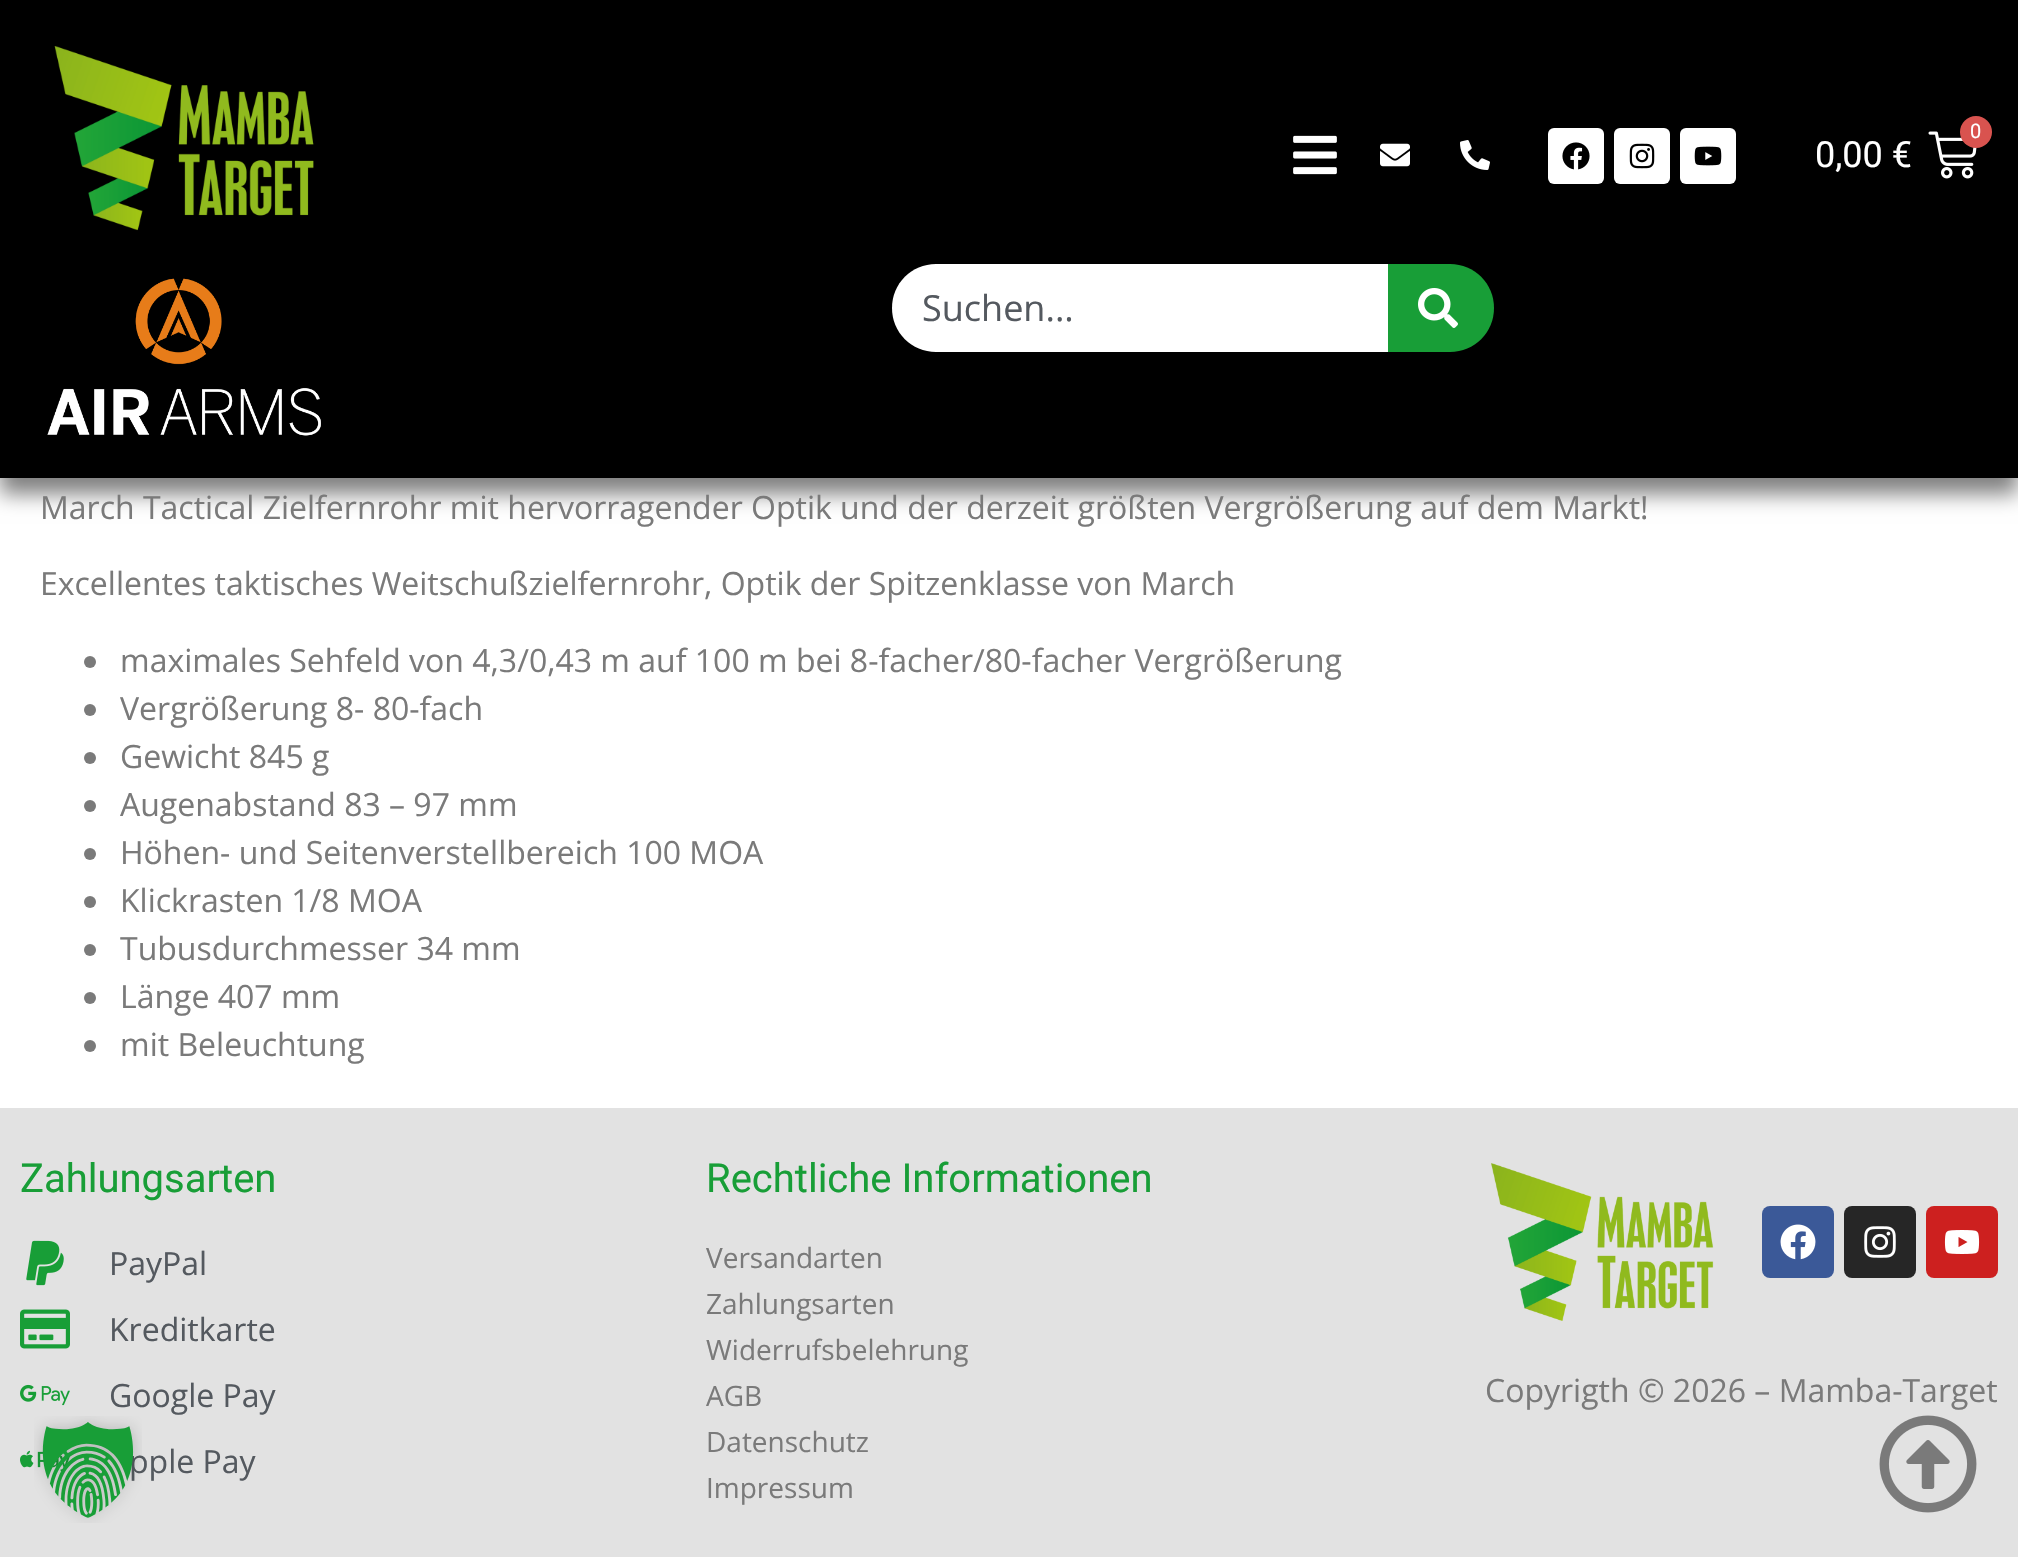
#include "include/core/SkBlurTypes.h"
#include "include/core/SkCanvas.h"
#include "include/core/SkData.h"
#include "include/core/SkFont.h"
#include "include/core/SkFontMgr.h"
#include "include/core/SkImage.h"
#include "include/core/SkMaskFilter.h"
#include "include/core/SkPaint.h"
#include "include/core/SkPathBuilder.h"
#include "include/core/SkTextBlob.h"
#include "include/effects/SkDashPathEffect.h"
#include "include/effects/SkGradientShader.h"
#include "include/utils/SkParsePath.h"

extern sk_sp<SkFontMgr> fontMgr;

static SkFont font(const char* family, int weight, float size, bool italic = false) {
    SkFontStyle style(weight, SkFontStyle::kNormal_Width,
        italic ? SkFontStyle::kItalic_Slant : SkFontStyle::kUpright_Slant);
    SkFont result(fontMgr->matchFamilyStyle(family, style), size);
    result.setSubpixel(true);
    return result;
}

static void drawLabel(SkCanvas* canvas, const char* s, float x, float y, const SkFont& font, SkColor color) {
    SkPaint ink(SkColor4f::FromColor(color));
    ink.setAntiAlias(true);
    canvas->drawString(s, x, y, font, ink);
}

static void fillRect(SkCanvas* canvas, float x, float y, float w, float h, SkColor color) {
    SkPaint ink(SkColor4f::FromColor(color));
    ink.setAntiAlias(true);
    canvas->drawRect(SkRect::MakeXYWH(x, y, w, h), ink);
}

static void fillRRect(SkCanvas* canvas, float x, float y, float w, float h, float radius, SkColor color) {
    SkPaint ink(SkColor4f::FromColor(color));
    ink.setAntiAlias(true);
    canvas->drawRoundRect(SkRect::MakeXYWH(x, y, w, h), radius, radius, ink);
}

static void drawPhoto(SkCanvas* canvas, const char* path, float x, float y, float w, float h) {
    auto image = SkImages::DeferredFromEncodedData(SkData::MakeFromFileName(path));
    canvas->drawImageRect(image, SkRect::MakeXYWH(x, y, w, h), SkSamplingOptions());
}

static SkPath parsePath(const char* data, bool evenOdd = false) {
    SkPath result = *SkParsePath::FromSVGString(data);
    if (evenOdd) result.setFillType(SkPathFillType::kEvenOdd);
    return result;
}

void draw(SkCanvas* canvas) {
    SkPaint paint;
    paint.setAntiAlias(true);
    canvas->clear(0xFFFFFFFF);
    paint.setColor(0x80000000);
    paint.setMaskFilter(SkMaskFilter::MakeBlur(kNormal_SkBlurStyle, 10));
    canvas->drawRect(SkRect::MakeXYWH(0, 16, 2018, 478), paint);
    paint.setMaskFilter(nullptr);
    fillRect(canvas, 0, 0, 2018, 478, 0xFF000000);
    drawPhoto(canvas, "assets/img1.png", 54, 46, 260, 185);
    drawPhoto(canvas, "assets/img2.png", 47, 278, 274, 158);
    drawPhoto(canvas, "assets/img3.png", 1293, 135, 44, 40);
    drawPhoto(canvas, "assets/img4.png", 1380, 143, 30, 24);
    drawPhoto(canvas, "assets/img5.png", 1460, 140, 30, 30);
    fillRRect(canvas, 1548, 128, 56, 56, 6, 0xFFFFFFFF);
    drawPhoto(canvas, "assets/img6.png", 1562, 142, 28, 28);
    fillRRect(canvas, 1614, 128, 56, 56, 6, 0xFFFFFFFF);
    drawPhoto(canvas, "assets/img7.png", 1629, 143, 26, 26);
    fillRRect(canvas, 1680, 128, 56, 56, 6, 0xFFFFFFFF);
    drawPhoto(canvas, "assets/img8.png", 1694, 146, 28, 20);
    drawPhoto(canvas, "assets/img9.png", 1928, 131, 49, 48);
    paint.setColor(0xFFD9534F);
    canvas->drawCircle(1976, 132, 16, paint);
    SkFont font1 = font("Roboto", 400, 20);
    drawLabel(canvas, "0", 1970, 138, font1, 0xFFFFFFFF);
    SkFont font2 = font("Roboto", 400, 36);
    drawLabel(canvas, "0,00 €", 1815, 167, font2, 0xFFFFFFFF);
    paint.setColor(0xFFFFFFFF);
    canvas->drawPath(parsePath("M936 264H1388V352H936C911.5 352 892 332.5 892 308C892 283.5 911.5 264 936 264Z"), paint);
    SkFont font3 = font("Open Sans", 400, 36);
    drawLabel(canvas, "Suchen...", 922, 321, font3, 0xFF54595F);
    paint.setColor(0xFF189E37);
    canvas->drawPath(parsePath("M1388 264H1450C1474.5 264 1494 283.5 1494 308C1494 332.5 1474.5 352 1450 352H1388Z"), paint);
    drawPhoto(canvas, "assets/img10.png", 1418, 288, 40, 40);
    SkFont font4 = font("Open Sans", 400, 32);
    drawLabel(canvas, "March Tactical Zielfernrohr mit hervorragender Optik und der derzeit größten Vergrößerung auf dem Markt!", 40, 519, font4, 0xFF7A7A7A);
    drawLabel(canvas, "Excellentes taktisches Weitschußzielfernrohr, Optik der Spitzenklasse von March", 40, 595, font4, 0xFF7A7A7A);
    paint.setColor(0xFF7A7A7A);
    canvas->drawCircle(90, 662, 6, paint);
    drawLabel(canvas, "maximales Sehfeld von 4,3/0,43 m auf 100 m bei 8-facher/80-facher Vergrößerung", 120, 672, font4, 0xFF7A7A7A);
    canvas->drawCircle(90, 710, 6, paint);
    drawLabel(canvas, "Vergrößerung 8- 80-fach", 120, 720, font4, 0xFF7A7A7A);
    canvas->drawCircle(90, 758, 6, paint);
    drawLabel(canvas, "Gewicht 845 g", 120, 768, font4, 0xFF7A7A7A);
    canvas->drawCircle(90, 806, 6, paint);
    drawLabel(canvas, "Augenabstand 83 – 97 mm", 120, 816, font4, 0xFF7A7A7A);
    canvas->drawCircle(90, 854, 6, paint);
    drawLabel(canvas, "Höhen- und Seitenverstellbereich 100 MOA", 120, 864, font4, 0xFF7A7A7A);
    canvas->drawCircle(90, 902, 6, paint);
    drawLabel(canvas, "Klickrasten 1/8 MOA", 120, 912, font4, 0xFF7A7A7A);
    canvas->drawCircle(90, 950, 6, paint);
    drawLabel(canvas, "Tubusdurchmesser 34 mm", 120, 960, font4, 0xFF7A7A7A);
    canvas->drawCircle(90, 998, 6, paint);
    drawLabel(canvas, "Länge 407 mm", 120, 1008, font4, 0xFF7A7A7A);
    canvas->drawCircle(90, 1046, 6, paint);
    drawLabel(canvas, "mit Beleuchtung", 120, 1056, font4, 0xFF7A7A7A);
    fillRect(canvas, 0, 1108, 2018, 449, 0xFFE2E2E2);
    SkFont font5 = font("Roboto", 400, 40);
    drawLabel(canvas, "Zahlungsarten", 20, 1192, font5, 0xFF189E37);
    drawPhoto(canvas, "assets/img11.png", 26, 1240, 38, 46);
    drawLabel(canvas, "PayPal", 109, 1275, font4, 0xFF54595F);
    drawPhoto(canvas, "assets/img12.png", 20, 1309, 50, 40);
    drawLabel(canvas, "Kreditkarte", 109, 1341, font4, 0xFF54595F);
    drawPhoto(canvas, "assets/img13.png", 20, 1384, 50, 22);
    drawLabel(canvas, "Google Pay", 109, 1407, font4, 0xFF54595F);
    drawPhoto(canvas, "assets/img14.png", 20, 1450, 50, 22);
    drawLabel(canvas, "pple Pay", 129, 1473, font4, 0xFF54595F);
    drawLabel(canvas, "Rechtliche Informationen", 706, 1192, font5, 0xFF189E37);
    SkFont font6 = font("Open Sans", 400, 28);
    drawLabel(canvas, "Versandarten", 706, 1268, font6, 0xFF7A7A7A);
    drawLabel(canvas, "Zahlungsarten", 706, 1314, font6, 0xFF7A7A7A);
    drawLabel(canvas, "Widerrufsbelehrung", 706, 1360, font6, 0xFF7A7A7A);
    drawLabel(canvas, "AGB", 706, 1406, font6, 0xFF7A7A7A);
    drawLabel(canvas, "Datenschutz", 706, 1452, font6, 0xFF7A7A7A);
    drawLabel(canvas, "Impressum", 706, 1498, font6, 0xFF7A7A7A);
    drawPhoto(canvas, "assets/img15.png", 1491, 1163, 223, 158);
    fillRRect(canvas, 1762, 1206, 72, 72, 8, 0xFF3B5998);
    drawPhoto(canvas, "assets/img16.png", 1780, 1224, 36, 36);
    fillRRect(canvas, 1844, 1206, 72, 72, 8, 0xFF262626);
    drawPhoto(canvas, "assets/img17.png", 1864, 1226, 32, 32);
    fillRRect(canvas, 1926, 1206, 72, 72, 8, 0xFFCD201F);
    drawPhoto(canvas, "assets/img18.png", 1944, 1230, 36, 24);
    drawLabel(canvas, "Copyrigth © 2026 – Mamba-Target", 1485, 1402, font4, 0xFF7A7A7A);
    drawPhoto(canvas, "assets/img19.png", 1879, 1415, 98, 98);
    drawPhoto(canvas, "assets/img20.png", 34, 1416, 108, 107);
}
